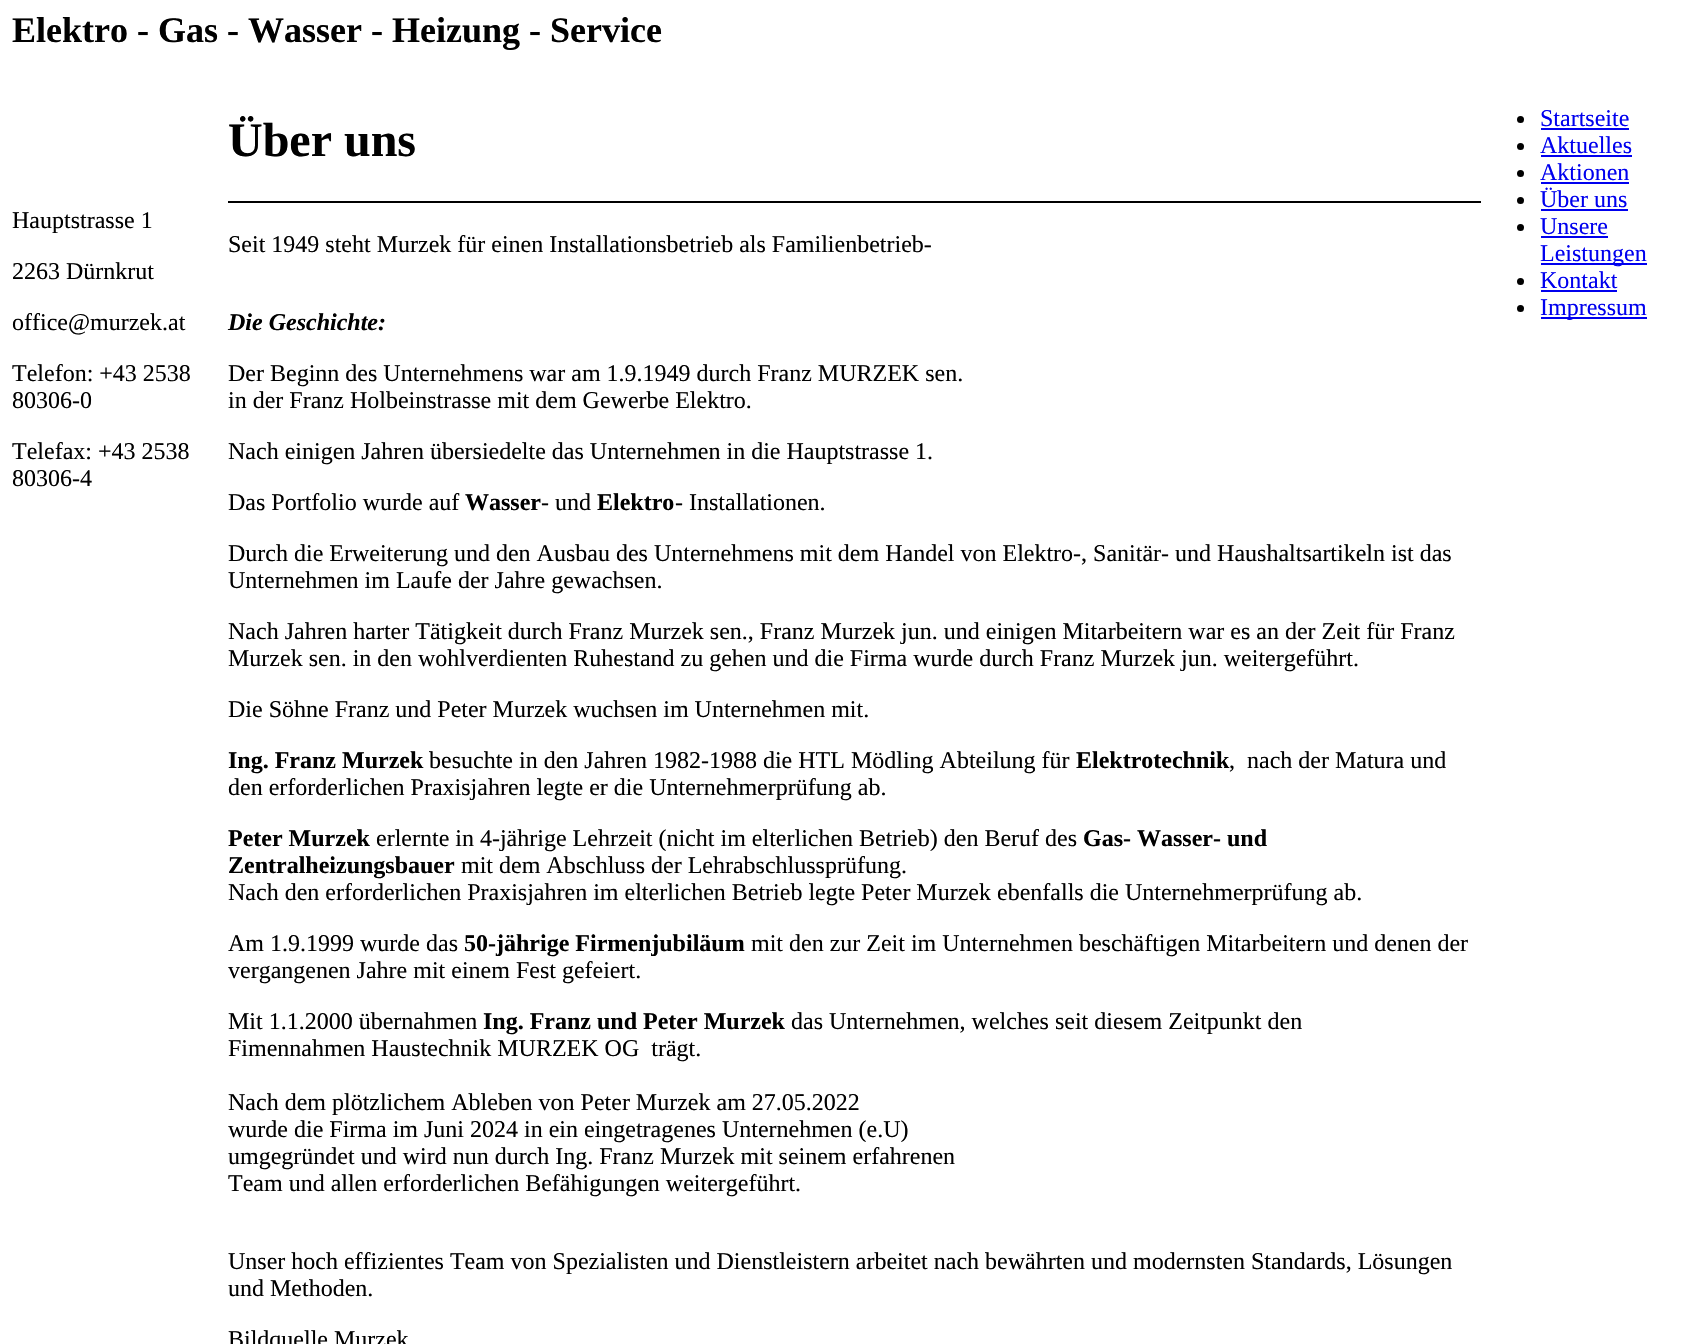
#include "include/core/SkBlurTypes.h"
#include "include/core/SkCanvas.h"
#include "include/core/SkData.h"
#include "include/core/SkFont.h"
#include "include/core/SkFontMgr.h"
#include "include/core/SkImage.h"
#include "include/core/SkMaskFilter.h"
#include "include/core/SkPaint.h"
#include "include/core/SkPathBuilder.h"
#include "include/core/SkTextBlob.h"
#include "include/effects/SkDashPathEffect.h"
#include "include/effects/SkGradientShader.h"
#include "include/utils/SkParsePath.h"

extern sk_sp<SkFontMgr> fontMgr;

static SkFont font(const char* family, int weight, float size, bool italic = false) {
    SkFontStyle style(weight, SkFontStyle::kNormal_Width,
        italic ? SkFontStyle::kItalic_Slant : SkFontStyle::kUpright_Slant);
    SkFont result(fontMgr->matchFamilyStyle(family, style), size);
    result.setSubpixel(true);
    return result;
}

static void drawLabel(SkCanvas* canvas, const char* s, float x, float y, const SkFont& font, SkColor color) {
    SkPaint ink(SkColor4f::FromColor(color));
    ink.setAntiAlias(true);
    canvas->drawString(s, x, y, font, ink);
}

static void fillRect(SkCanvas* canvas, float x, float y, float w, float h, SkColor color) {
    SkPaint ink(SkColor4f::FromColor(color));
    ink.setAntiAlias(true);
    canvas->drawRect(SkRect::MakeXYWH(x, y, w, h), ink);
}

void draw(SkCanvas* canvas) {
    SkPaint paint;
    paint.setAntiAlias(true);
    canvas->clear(0xFFFFFFFF);
    SkFont font1 = font("Liberation Serif", 700, 36);
    drawLabel(canvas, "Elektro - Gas - Wasser - Heizung - Service", 12, 42, font1, 0xFF000000);
    SkFont font2 = font("Liberation Serif", 400, 24);
    drawLabel(canvas, "Hauptstrasse 1", 12, 228, font2, 0xFF000000);
    drawLabel(canvas, "2263 Dürnkrut", 12, 279, font2, 0xFF000000);
    drawLabel(canvas, "office@murzek.at", 12, 330, font2, 0xFF000000);
    drawLabel(canvas, "Telefon: +43 2538", 12, 381, font2, 0xFF000000);
    drawLabel(canvas, "80306-0", 12, 408, font2, 0xFF000000);
    drawLabel(canvas, "Telefax: +43 2538", 12, 459, font2, 0xFF000000);
    drawLabel(canvas, "80306-4", 12, 486, font2, 0xFF000000);
    SkFont font3 = font("Liberation Serif", 700, 48);
    drawLabel(canvas, "Über uns", 228, 156, font3, 0xFF000000);
    fillRect(canvas, 228, 201, 1253, 2, 0xFF000000);
    drawLabel(canvas, "Seit 1949 steht Murzek für einen Installationsbetrieb als Familienbetrieb-", 228, 252, font2, 0xFF000000);
    SkFont font4 = font("Liberation Serif", 700, 24, true);
    drawLabel(canvas, "Die Geschichte:", 228, 330, font4, 0xFF000000);
    drawLabel(canvas, "Der Beginn des Unternehmens war am 1.9.1949 durch Franz MURZEK sen.", 228, 381, font2, 0xFF000000);
    drawLabel(canvas, "in der Franz Holbeinstrasse mit dem Gewerbe Elektro.", 228, 408, font2, 0xFF000000);
    drawLabel(canvas, "Nach einigen Jahren übersiedelte das Unternehmen in die Hauptstrasse 1.", 228, 459, font2, 0xFF000000);
    drawLabel(canvas, "Das Portfolio wurde auf", 228, 510, font2, 0xFF000000);
    SkFont font5 = font("Liberation Serif", 700, 24);
    drawLabel(canvas, "Wasser", 465, 510, font5, 0xFF000000);
    drawLabel(canvas, "- und", 541, 510, font2, 0xFF000000);
    drawLabel(canvas, "Elektro", 597, 510, font5, 0xFF000000);
    drawLabel(canvas, "- Installationen.", 675, 510, font2, 0xFF000000);
    drawLabel(canvas, "Durch die Erweiterung und den Ausbau des Unternehmens mit dem Handel von Elektro-, Sanitär- und Haushaltsartikeln ist das", 228, 561, font2, 0xFF000000);
    drawLabel(canvas, "Unternehmen im Laufe der Jahre gewachsen.", 228, 588, font2, 0xFF000000);
    drawLabel(canvas, "Nach Jahren harter Tätigkeit durch Franz Murzek sen., Franz Murzek jun. und einigen Mitarbeitern war es an der Zeit für Franz", 228, 639, font2, 0xFF000000);
    drawLabel(canvas, "Murzek sen. in den wohlverdienten Ruhestand zu gehen und die Firma wurde durch Franz Murzek jun. weitergeführt.", 228, 666, font2, 0xFF000000);
    drawLabel(canvas, "Die Söhne Franz und Peter Murzek wuchsen im Unternehmen mit.", 228, 717, font2, 0xFF000000);
    drawLabel(canvas, "Ing. Franz Murzek", 228, 768, font5, 0xFF000000);
    drawLabel(canvas, "besuchte in den Jahren 1982-1988 die HTL Mödling Abteilung für", 429, 768, font2, 0xFF000000);
    drawLabel(canvas, "Elektrotechnik", 1076, 768, font5, 0xFF000000);
    drawLabel(canvas, ",  nach der Matura und", 1229, 768, font2, 0xFF000000);
    drawLabel(canvas, "den erforderlichen Praxisjahren legte er die Unternehmerprüfung ab.", 228, 795, font2, 0xFF000000);
    drawLabel(canvas, "Peter Murzek", 228, 846, font5, 0xFF000000);
    drawLabel(canvas, "erlernte in 4-jährige Lehrzeit (nicht im elterlichen Betrieb) den Beruf des", 376, 846, font2, 0xFF000000);
    drawLabel(canvas, "Gas- Wasser- und", 1083, 846, font5, 0xFF000000);
    drawLabel(canvas, "Zentralheizungsbauer", 228, 873, font5, 0xFF000000);
    drawLabel(canvas, "mit dem Abschluss der Lehrabschlussprüfung.", 461, 873, font2, 0xFF000000);
    drawLabel(canvas, "Nach den erforderlichen Praxisjahren im elterlichen Betrieb legte Peter Murzek ebenfalls die Unternehmerprüfung ab.", 228, 900, font2, 0xFF000000);
    drawLabel(canvas, "Am 1.9.1999 wurde das", 228, 951, font2, 0xFF000000);
    drawLabel(canvas, "50-jährige Firmenjubiläum", 464, 951, font5, 0xFF000000);
    drawLabel(canvas, "mit den zur Zeit im Unternehmen beschäftigen Mitarbeitern und denen der", 751, 951, font2, 0xFF000000);
    drawLabel(canvas, "vergangenen Jahre mit einem Fest gefeiert.", 228, 978, font2, 0xFF000000);
    drawLabel(canvas, "Mit 1.1.2000 übernahmen", 228, 1029, font2, 0xFF000000);
    drawLabel(canvas, "Ing. Franz und Peter Murzek", 483, 1029, font5, 0xFF000000);
    drawLabel(canvas, "das Unternehmen, welches seit diesem Zeitpunkt den", 791, 1029, font2, 0xFF000000);
    drawLabel(canvas, "Fimennahmen Haustechnik MURZEK OG  trägt.", 228, 1056, font2, 0xFF000000);
    drawLabel(canvas, "Nach dem plötzlichem Ableben von Peter Murzek am 27.05.2022", 228, 1110, font2, 0xFF000000);
    drawLabel(canvas, "wurde die Firma im Juni 2024 in ein eingetragenes Unternehmen (e.U)", 228, 1137, font2, 0xFF000000);
    drawLabel(canvas, "umgegründet und wird nun durch Ing. Franz Murzek mit seinem erfahrenen", 228, 1164, font2, 0xFF000000);
    drawLabel(canvas, "Team und allen erforderlichen Befähigungen weitergeführt.", 228, 1191, font2, 0xFF000000);
    drawLabel(canvas, "Unser hoch effizientes Team von Spezialisten und Dienstleistern arbeitet nach bewährten und modernsten Standards, Lösungen", 228, 1269, font2, 0xFF000000);
    drawLabel(canvas, "und Methoden.", 228, 1296, font2, 0xFF000000);
    drawLabel(canvas, "Bildquelle Murzek", 228, 1347, font2, 0xFF000000);
    paint.setColor(0xFF000000);
    canvas->drawCircle(1520.5f, 119.5f, 3.5f, paint);
    drawLabel(canvas, "Startseite", 1540, 126, font2, 0xFF0000EE);
    fillRect(canvas, 1541, 128, 88, 2, 0xFF0000EE);
    canvas->drawCircle(1520.5f, 146.5f, 3.5f, paint);
    drawLabel(canvas, "Aktuelles", 1540, 153, font2, 0xFF0000EE);
    fillRect(canvas, 1541, 155, 91, 2, 0xFF0000EE);
    canvas->drawCircle(1520.5f, 173.5f, 3.5f, paint);
    drawLabel(canvas, "Aktionen", 1540, 180, font2, 0xFF0000EE);
    fillRect(canvas, 1541, 182, 88, 2, 0xFF0000EE);
    canvas->drawCircle(1520.5f, 200.5f, 3.5f, paint);
    drawLabel(canvas, "Über uns", 1540, 207, font2, 0xFF0000EE);
    fillRect(canvas, 1541, 209, 87, 2, 0xFF0000EE);
    canvas->drawCircle(1520.5f, 227.5f, 3.5f, paint);
    drawLabel(canvas, "Unsere", 1540, 234, font2, 0xFF0000EE);
    fillRect(canvas, 1541, 236, 67, 2, 0xFF0000EE);
    fillRect(canvas, 1541, 263, 106, 2, 0xFF0000EE);
    drawLabel(canvas, "Leistungen", 1540, 261, font2, 0xFF0000EE);
    canvas->drawCircle(1520.5f, 281.5f, 3.5f, paint);
    drawLabel(canvas, "Kontakt", 1540, 288, font2, 0xFF0000EE);
    fillRect(canvas, 1541, 290, 76, 2, 0xFF0000EE);
    canvas->drawCircle(1520.5f, 308.5f, 3.5f, paint);
    fillRect(canvas, 1541, 317, 106, 2, 0xFF0000EE);
    drawLabel(canvas, "Impressum", 1540, 315, font2, 0xFF0000EE);
}
